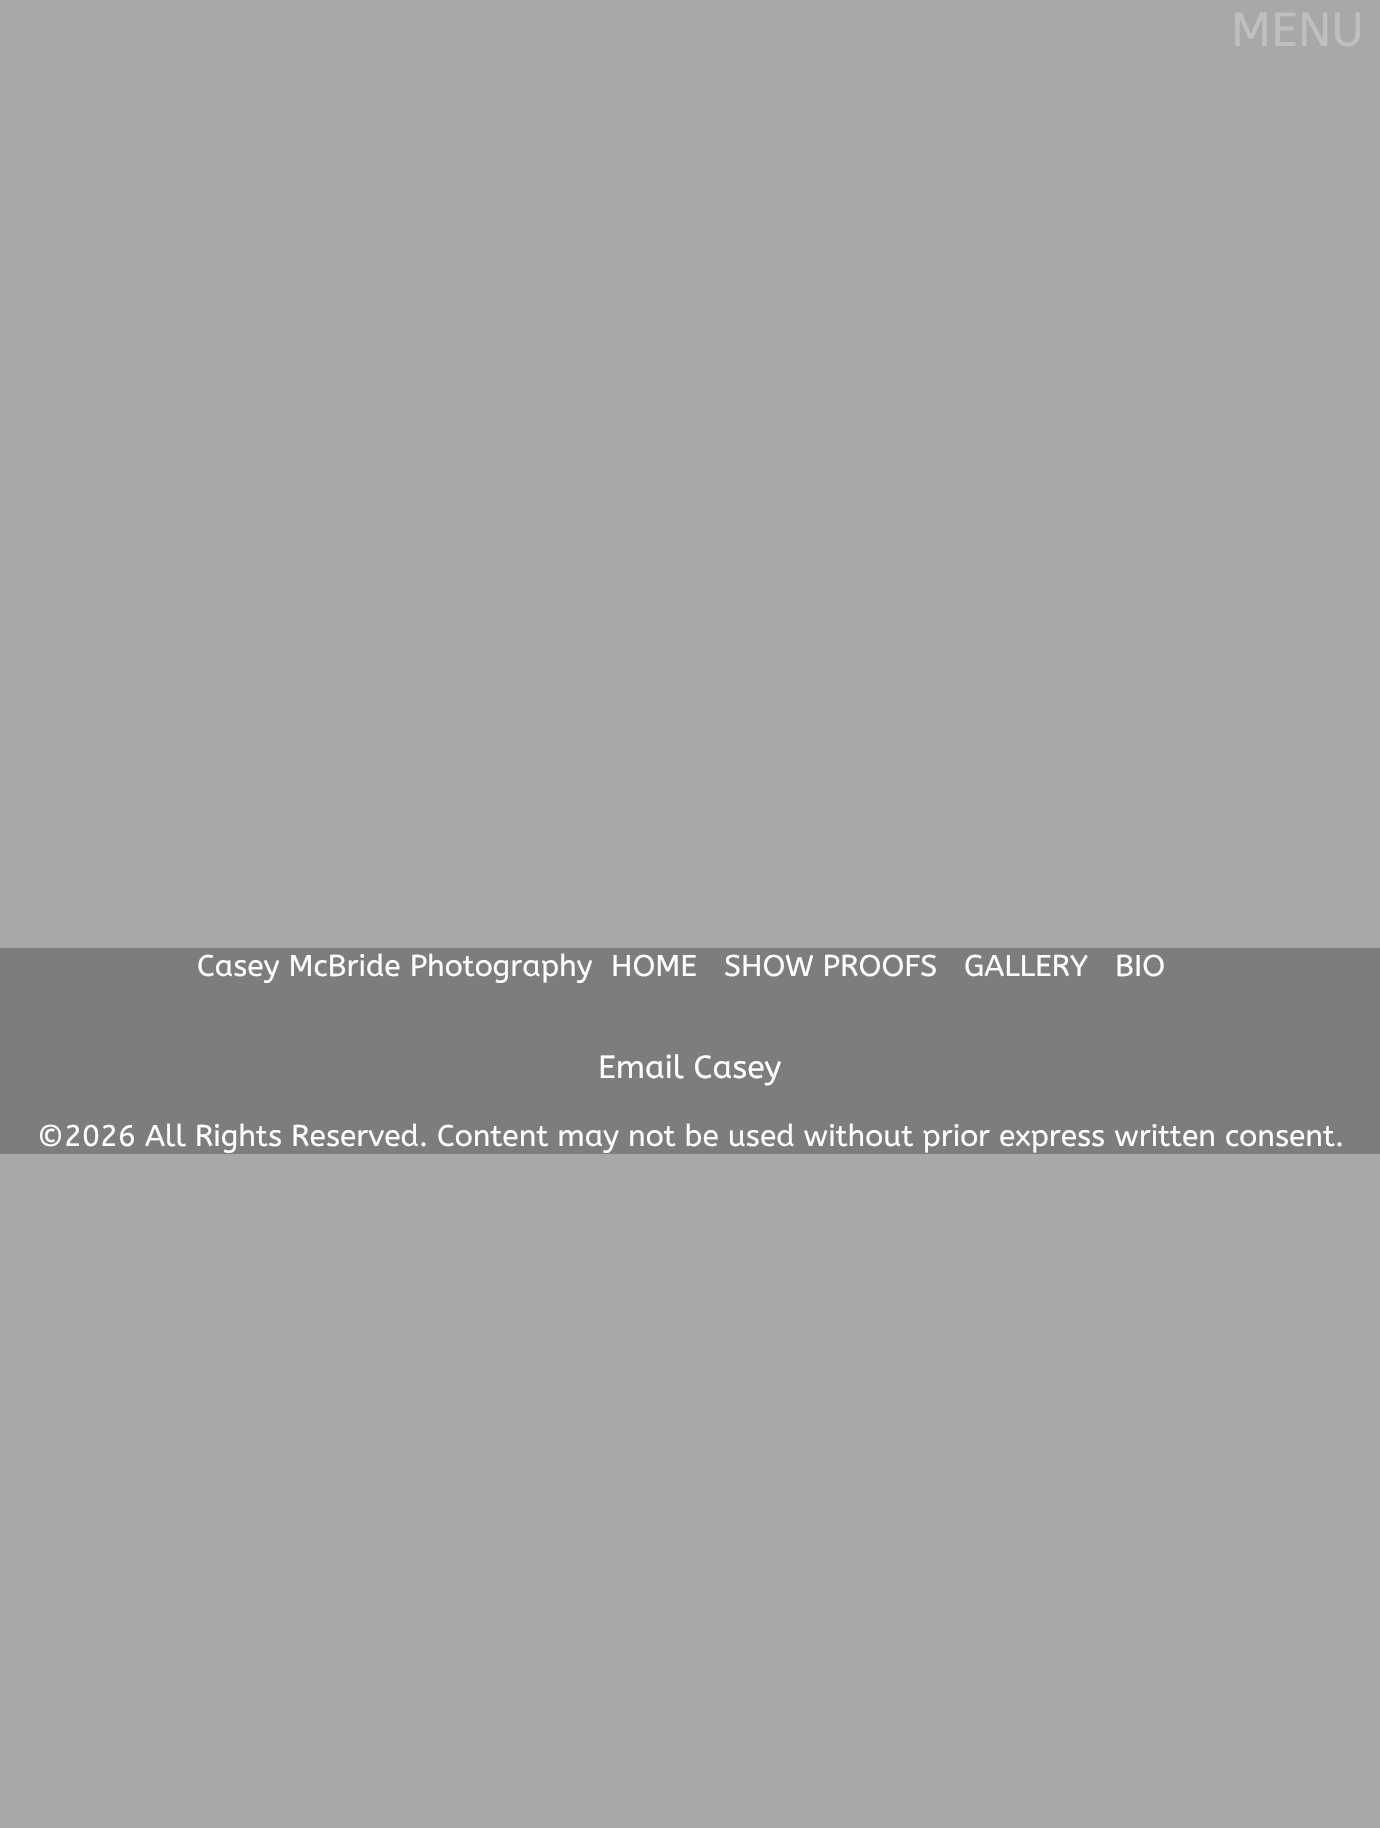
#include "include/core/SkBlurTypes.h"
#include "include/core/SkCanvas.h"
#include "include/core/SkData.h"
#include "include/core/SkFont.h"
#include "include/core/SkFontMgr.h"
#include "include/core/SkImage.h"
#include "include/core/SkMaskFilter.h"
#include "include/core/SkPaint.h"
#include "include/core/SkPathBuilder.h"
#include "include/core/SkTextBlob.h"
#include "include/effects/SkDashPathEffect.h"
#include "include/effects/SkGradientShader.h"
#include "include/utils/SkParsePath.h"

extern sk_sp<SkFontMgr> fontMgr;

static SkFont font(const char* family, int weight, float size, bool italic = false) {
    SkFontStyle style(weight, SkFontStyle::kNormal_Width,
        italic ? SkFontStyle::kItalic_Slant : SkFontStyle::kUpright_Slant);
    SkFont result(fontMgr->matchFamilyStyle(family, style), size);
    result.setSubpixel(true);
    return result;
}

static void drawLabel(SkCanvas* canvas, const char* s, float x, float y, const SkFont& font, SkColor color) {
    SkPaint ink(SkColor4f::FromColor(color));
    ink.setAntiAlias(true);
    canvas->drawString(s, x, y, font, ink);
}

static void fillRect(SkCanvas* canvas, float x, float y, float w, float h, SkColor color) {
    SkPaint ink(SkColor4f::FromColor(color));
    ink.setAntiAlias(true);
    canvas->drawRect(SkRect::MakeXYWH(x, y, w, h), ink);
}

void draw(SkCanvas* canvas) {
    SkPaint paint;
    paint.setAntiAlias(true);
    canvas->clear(0xFFA8A8A8);
    SkFont font1 = font("ABeeZee", 400, 48);
    drawLabel(canvas, "MENU", 1231, 46, font1, 0xFFBFBFBF);
    fillRect(canvas, 0, 948, 1380, 206, 0xFF7D7D7D);
    SkFont font2 = font("ABeeZee", 400, 30);
    drawLabel(canvas, "Casey McBride Photography", 197, 976, font2, 0xFFFFFFFF);
    drawLabel(canvas, "HOME", 611, 976, font2, 0xFFFFFFFF);
    drawLabel(canvas, "SHOW PROOFS", 724, 976, font2, 0xFFFFFFFF);
    drawLabel(canvas, "GALLERY", 964, 976, font2, 0xFFFFFFFF);
    drawLabel(canvas, "BIO", 1115, 976, font2, 0xFFFFFFFF);
    SkFont font3 = font("ABeeZee", 400, 32);
    drawLabel(canvas, "Email Casey", 598, 1078, font3, 0xFFFFFFFF);
    drawLabel(canvas, "©2026 All Rights Reserved. Content may not be used without prior express written consent.", 37, 1146, font2, 0xFFFFFFFF);
}
